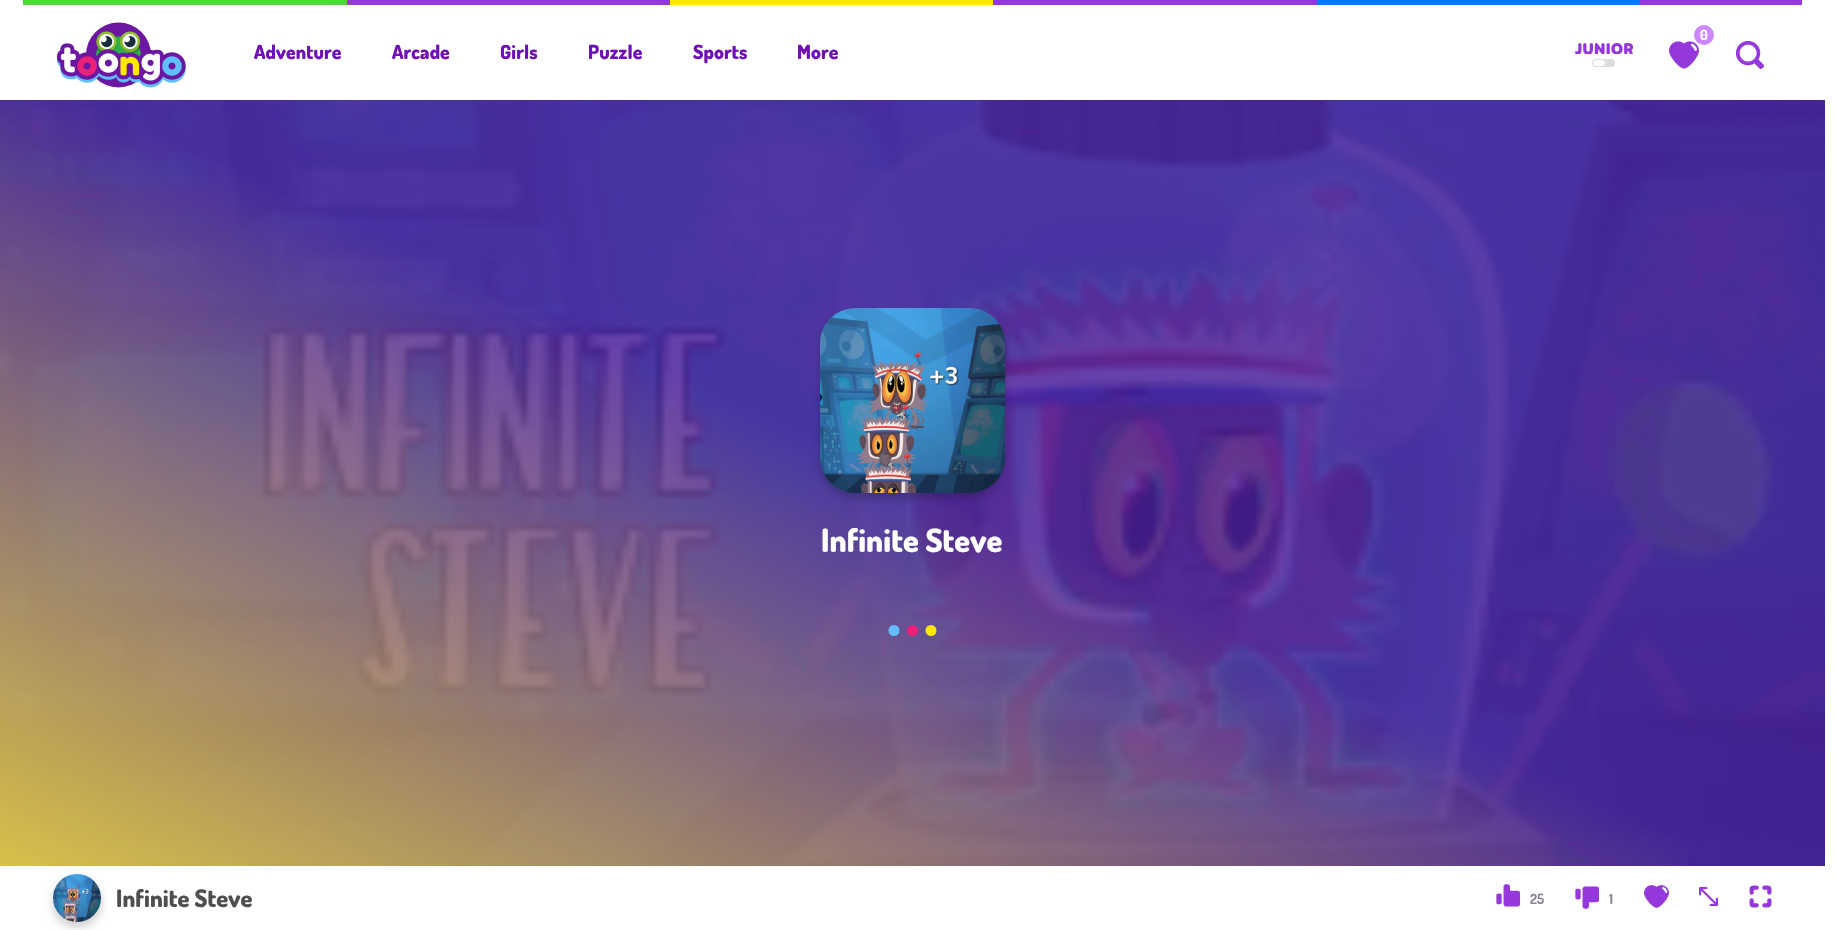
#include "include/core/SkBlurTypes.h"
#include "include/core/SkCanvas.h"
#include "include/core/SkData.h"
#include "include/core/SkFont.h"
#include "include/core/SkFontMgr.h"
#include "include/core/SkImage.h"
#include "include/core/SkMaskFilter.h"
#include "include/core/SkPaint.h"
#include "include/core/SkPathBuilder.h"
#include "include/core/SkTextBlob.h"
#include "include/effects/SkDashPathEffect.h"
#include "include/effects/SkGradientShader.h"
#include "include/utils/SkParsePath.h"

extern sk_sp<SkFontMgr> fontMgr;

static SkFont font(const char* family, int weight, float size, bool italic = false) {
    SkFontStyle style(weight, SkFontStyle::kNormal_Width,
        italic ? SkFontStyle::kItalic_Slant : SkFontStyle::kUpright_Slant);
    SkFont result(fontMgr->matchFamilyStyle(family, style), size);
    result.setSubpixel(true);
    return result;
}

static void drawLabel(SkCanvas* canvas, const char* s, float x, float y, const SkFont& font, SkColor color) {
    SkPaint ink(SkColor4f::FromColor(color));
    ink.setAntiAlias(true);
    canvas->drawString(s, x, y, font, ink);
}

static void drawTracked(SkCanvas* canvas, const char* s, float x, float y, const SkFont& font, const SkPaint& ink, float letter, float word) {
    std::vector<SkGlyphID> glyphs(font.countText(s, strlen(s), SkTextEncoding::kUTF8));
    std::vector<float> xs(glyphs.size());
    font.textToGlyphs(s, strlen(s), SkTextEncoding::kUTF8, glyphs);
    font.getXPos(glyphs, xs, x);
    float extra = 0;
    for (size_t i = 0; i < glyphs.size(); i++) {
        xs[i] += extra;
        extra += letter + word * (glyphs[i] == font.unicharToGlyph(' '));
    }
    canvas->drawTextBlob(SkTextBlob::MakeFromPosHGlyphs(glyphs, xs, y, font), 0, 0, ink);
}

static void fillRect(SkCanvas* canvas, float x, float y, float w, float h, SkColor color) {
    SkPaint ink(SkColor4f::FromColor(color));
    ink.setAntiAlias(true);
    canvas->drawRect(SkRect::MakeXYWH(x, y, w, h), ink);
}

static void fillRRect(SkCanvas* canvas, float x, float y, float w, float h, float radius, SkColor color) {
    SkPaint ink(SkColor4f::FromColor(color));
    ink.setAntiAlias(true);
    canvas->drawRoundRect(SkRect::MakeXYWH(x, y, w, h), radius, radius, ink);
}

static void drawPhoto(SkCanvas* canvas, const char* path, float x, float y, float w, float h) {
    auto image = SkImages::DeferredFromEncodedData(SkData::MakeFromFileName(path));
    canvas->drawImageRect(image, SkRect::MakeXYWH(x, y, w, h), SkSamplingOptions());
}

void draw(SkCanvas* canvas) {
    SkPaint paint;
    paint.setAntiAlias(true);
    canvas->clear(0xFFFFFFFF);
    fillRect(canvas, 347, 0, 1455, 5, 0xFF9538DB);
    fillRect(canvas, 670, 0, 323, 5, 0xFFFDE802);
    fillRect(canvas, 1317, 0, 323, 5, 0xFF0278FD);
    fillRect(canvas, 23, 0, 324, 5, 0xFF4BDB38);
    drawPhoto(canvas, "assets/img1.png", 1669, 41, 30, 28);
    paint.setColor(0xFFCC88FF);
    canvas->drawCircle(1704, 35, 10, paint);
    SkFont font1 = font("Dosis", 700, 14);
    drawLabel(canvas, "0", 1700, 40, font1, 0xFFFFFFFF);
    drawPhoto(canvas, "assets/img2.png", 1575, 43, 58, 11);
    fillRRect(canvas, 1592, 59, 23, 8, 4, 0xFFDCDCDC);
    fillRRect(canvas, 1593, 60, 12, 6, 3, 0xFFFFFFFF);
    drawPhoto(canvas, "assets/img3.png", 1735, 40, 29, 29);
    paint.setColor(0xFF6C17A1);
    canvas->drawCircle(118.5f, 55, 32.5f, paint);
    drawPhoto(canvas, "assets/img4.png", 96, 31, 45, 26);
    drawPhoto(canvas, "assets/img5.png", 57, 43, 129, 45);
    SkFont font2 = font("Dosis", 800, 19.5f);
    paint.setColor(0xFF6F10B6);
    drawTracked(canvas, "Adventure", 254, 59, font2, paint, 0.1f, 0);
    drawTracked(canvas, "Arcade", 392, 59, font2, paint, 0.1f, 0);
    drawTracked(canvas, "Girls", 500, 59, font2, paint, 0.1f, 0);
    drawTracked(canvas, "Puzzle", 588, 59, font2, paint, 0.1f, 0);
    drawTracked(canvas, "Sports", 693, 59, font2, paint, 0.1f, 0);
    drawTracked(canvas, "More", 797, 59, font2, paint, 0.1f, 0);
    paint.setColor(0x33000000);
    paint.setMaskFilter(SkMaskFilter::MakeBlur(kNormal_SkBlurStyle, 5));
    canvas->drawRoundRect(SkRect::MakeXYWH(53, 879, 48, 48), 24, 24, paint);
    paint.setMaskFilter(nullptr);
    fillRect(canvas, 0, 100, 1825, 766, 0xFF4A1F9B);
    drawPhoto(canvas, "assets/img6.png", 0, 100, 1825, 766);
    {
        const SkColor colors[] = {0xD4F7E03B, 0x00F7E03B};
        const float stops[] = {0, 0.5f};
        const SkPoint ends[] = {{603, 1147}, {1222, -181}};
        paint.setShader(SkGradientShader::MakeLinear(ends, colors, stops, 2, SkTileMode::kClamp));
        paint.setAlpha(255);
    }
    canvas->drawRect(SkRect::MakeXYWH(0, 100, 1688, 766), paint);
    paint.setShader(nullptr);
    paint.setColor(0x33000000);
    paint.setMaskFilter(SkMaskFilter::MakeBlur(kNormal_SkBlurStyle, 4));
    canvas->drawRoundRect(SkRect::MakeXYWH(820, 313, 185, 185), 35, 35, paint);
    paint.setMaskFilter(nullptr);
    drawPhoto(canvas, "assets/img7.png", 820, 308, 185, 185);
    SkFont font3 = font("Dosis", 800, 32);
    paint.setColor(0xFFFFFFFF);
    drawTracked(canvas, "Infinite Steve", 821, 552, font3, paint, 0.1f, 0);
    paint.setColor(0xFFEC2079);
    canvas->drawCircle(912.5f, 630.5f, 5.5f, paint);
    paint.setColor(0xFFFEE902);
    canvas->drawCircle(931, 630.5f, 5.5f, paint);
    paint.setColor(0xFF64BDFF);
    canvas->drawCircle(894, 630.5f, 5.5f, paint);
    drawPhoto(canvas, "assets/img8.png", 53, 874, 48, 48);
    SkFont font4 = font("Dosis", 800, 24);
    paint.setColor(0xFF4F4F4F);
    drawTracked(canvas, "Infinite Steve", 116, 907, font4, paint, 0.1f, 0);
    drawPhoto(canvas, "assets/img9.png", 1496, 884, 24, 23);
    drawLabel(canvas, "25", 1530, 904, font1, 0xFF8D8299);
    drawPhoto(canvas, "assets/img10.png", 1575, 886, 24, 23);
    drawLabel(canvas, "1", 1609, 904, font1, 0xFF8D8299);
    drawPhoto(canvas, "assets/img11.png", 1644, 885, 25, 23);
    drawPhoto(canvas, "assets/img12.png", 1699, 887, 19, 19);
    drawPhoto(canvas, "assets/img13.png", 1749, 885, 23, 23);
}
